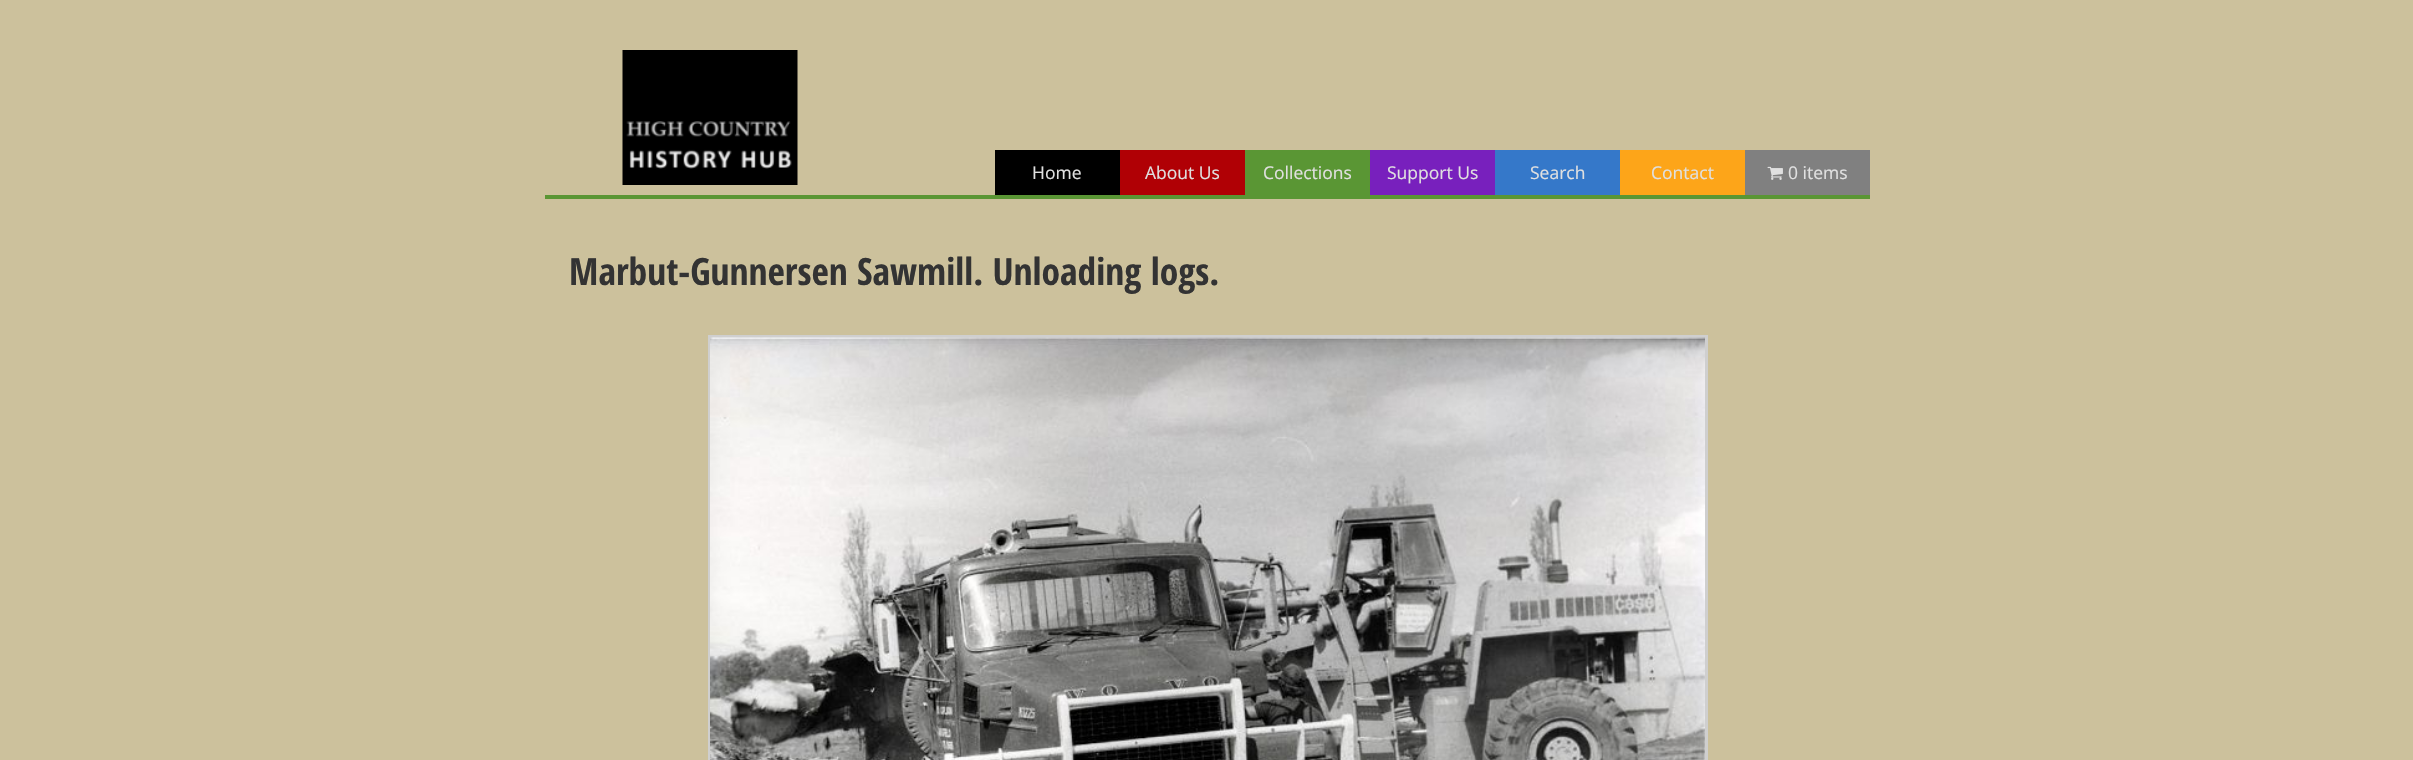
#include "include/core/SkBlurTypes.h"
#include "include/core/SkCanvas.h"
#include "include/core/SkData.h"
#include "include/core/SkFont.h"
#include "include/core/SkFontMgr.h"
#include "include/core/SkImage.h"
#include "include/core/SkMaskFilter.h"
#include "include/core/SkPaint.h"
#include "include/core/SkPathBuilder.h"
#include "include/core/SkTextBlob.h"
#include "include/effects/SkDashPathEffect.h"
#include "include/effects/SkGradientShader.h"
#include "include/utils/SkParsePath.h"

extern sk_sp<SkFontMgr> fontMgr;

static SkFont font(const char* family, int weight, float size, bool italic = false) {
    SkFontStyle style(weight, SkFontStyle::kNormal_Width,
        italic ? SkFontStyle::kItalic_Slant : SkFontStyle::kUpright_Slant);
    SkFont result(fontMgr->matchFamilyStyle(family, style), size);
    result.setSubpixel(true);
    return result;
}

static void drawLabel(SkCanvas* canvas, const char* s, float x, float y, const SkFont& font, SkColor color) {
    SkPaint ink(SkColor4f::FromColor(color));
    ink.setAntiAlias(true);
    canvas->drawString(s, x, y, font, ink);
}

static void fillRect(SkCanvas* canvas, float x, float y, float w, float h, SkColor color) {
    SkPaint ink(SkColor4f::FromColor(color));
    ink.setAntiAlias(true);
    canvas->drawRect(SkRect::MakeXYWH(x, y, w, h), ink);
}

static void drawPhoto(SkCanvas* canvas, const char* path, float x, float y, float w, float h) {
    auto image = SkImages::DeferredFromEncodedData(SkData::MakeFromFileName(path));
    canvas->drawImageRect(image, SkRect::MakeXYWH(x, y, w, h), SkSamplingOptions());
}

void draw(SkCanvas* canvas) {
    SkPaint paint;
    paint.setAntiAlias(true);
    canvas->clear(0xFFCCC19C);
    drawPhoto(canvas, "assets/img1.png", 622, 50, 176, 135);
    fillRect(canvas, 995, 150, 125, 45, 0xFF000000);
    SkFont font1 = font("Open Sans", 400, 17.5f);
    drawLabel(canvas, "Home", 1032, 179, font1, 0xFFE0E0E0);
    fillRect(canvas, 1120, 150, 125, 45, 0xFFB00005);
    drawLabel(canvas, "About Us", 1145, 179, font1, 0xFFE0E0E0);
    fillRect(canvas, 1245, 150, 125, 45, 0xFF5A9634);
    drawLabel(canvas, "Collections", 1263, 179, font1, 0xFFE0E0E0);
    fillRect(canvas, 1370, 150, 125, 45, 0xFF7820BD);
    drawLabel(canvas, "Support Us", 1387, 179, font1, 0xFFE0E0E0);
    fillRect(canvas, 1495, 150, 125, 45, 0xFF3578C9);
    drawLabel(canvas, "Search", 1530, 179, font1, 0xFFE0E0E0);
    fillRect(canvas, 1620, 150, 125, 45, 0xFFFDA519);
    drawLabel(canvas, "Contact", 1651, 179, font1, 0xFFE0E0E0);
    fillRect(canvas, 1745, 150, 125, 45, 0xFF808080);
    drawPhoto(canvas, "assets/img2.png", 1767, 166, 16, 14);
    drawLabel(canvas, "0 items", 1788, 179, font1, 0xFFE0E0E0);
    fillRect(canvas, 545, 195, 1325, 4, 0xFF5A9634);
    SkFont font2 = font("Open Sans Condensed", 700, 37.5f);
    drawLabel(canvas, "Marbut-Gunnersen Sawmill. Unloading logs.", 569, 285, font2, 0xFF333333);
    paint.setStroke(true);
    paint.setStrokeWidth(3);
    paint.setColor(0xFFCFCFCF);
    canvas->drawRect(SkRect::MakeXYWH(709.5f, 336.5f, 997, 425), paint);
    drawPhoto(canvas, "assets/img3.png", 710, 337, 995, 423);
}
